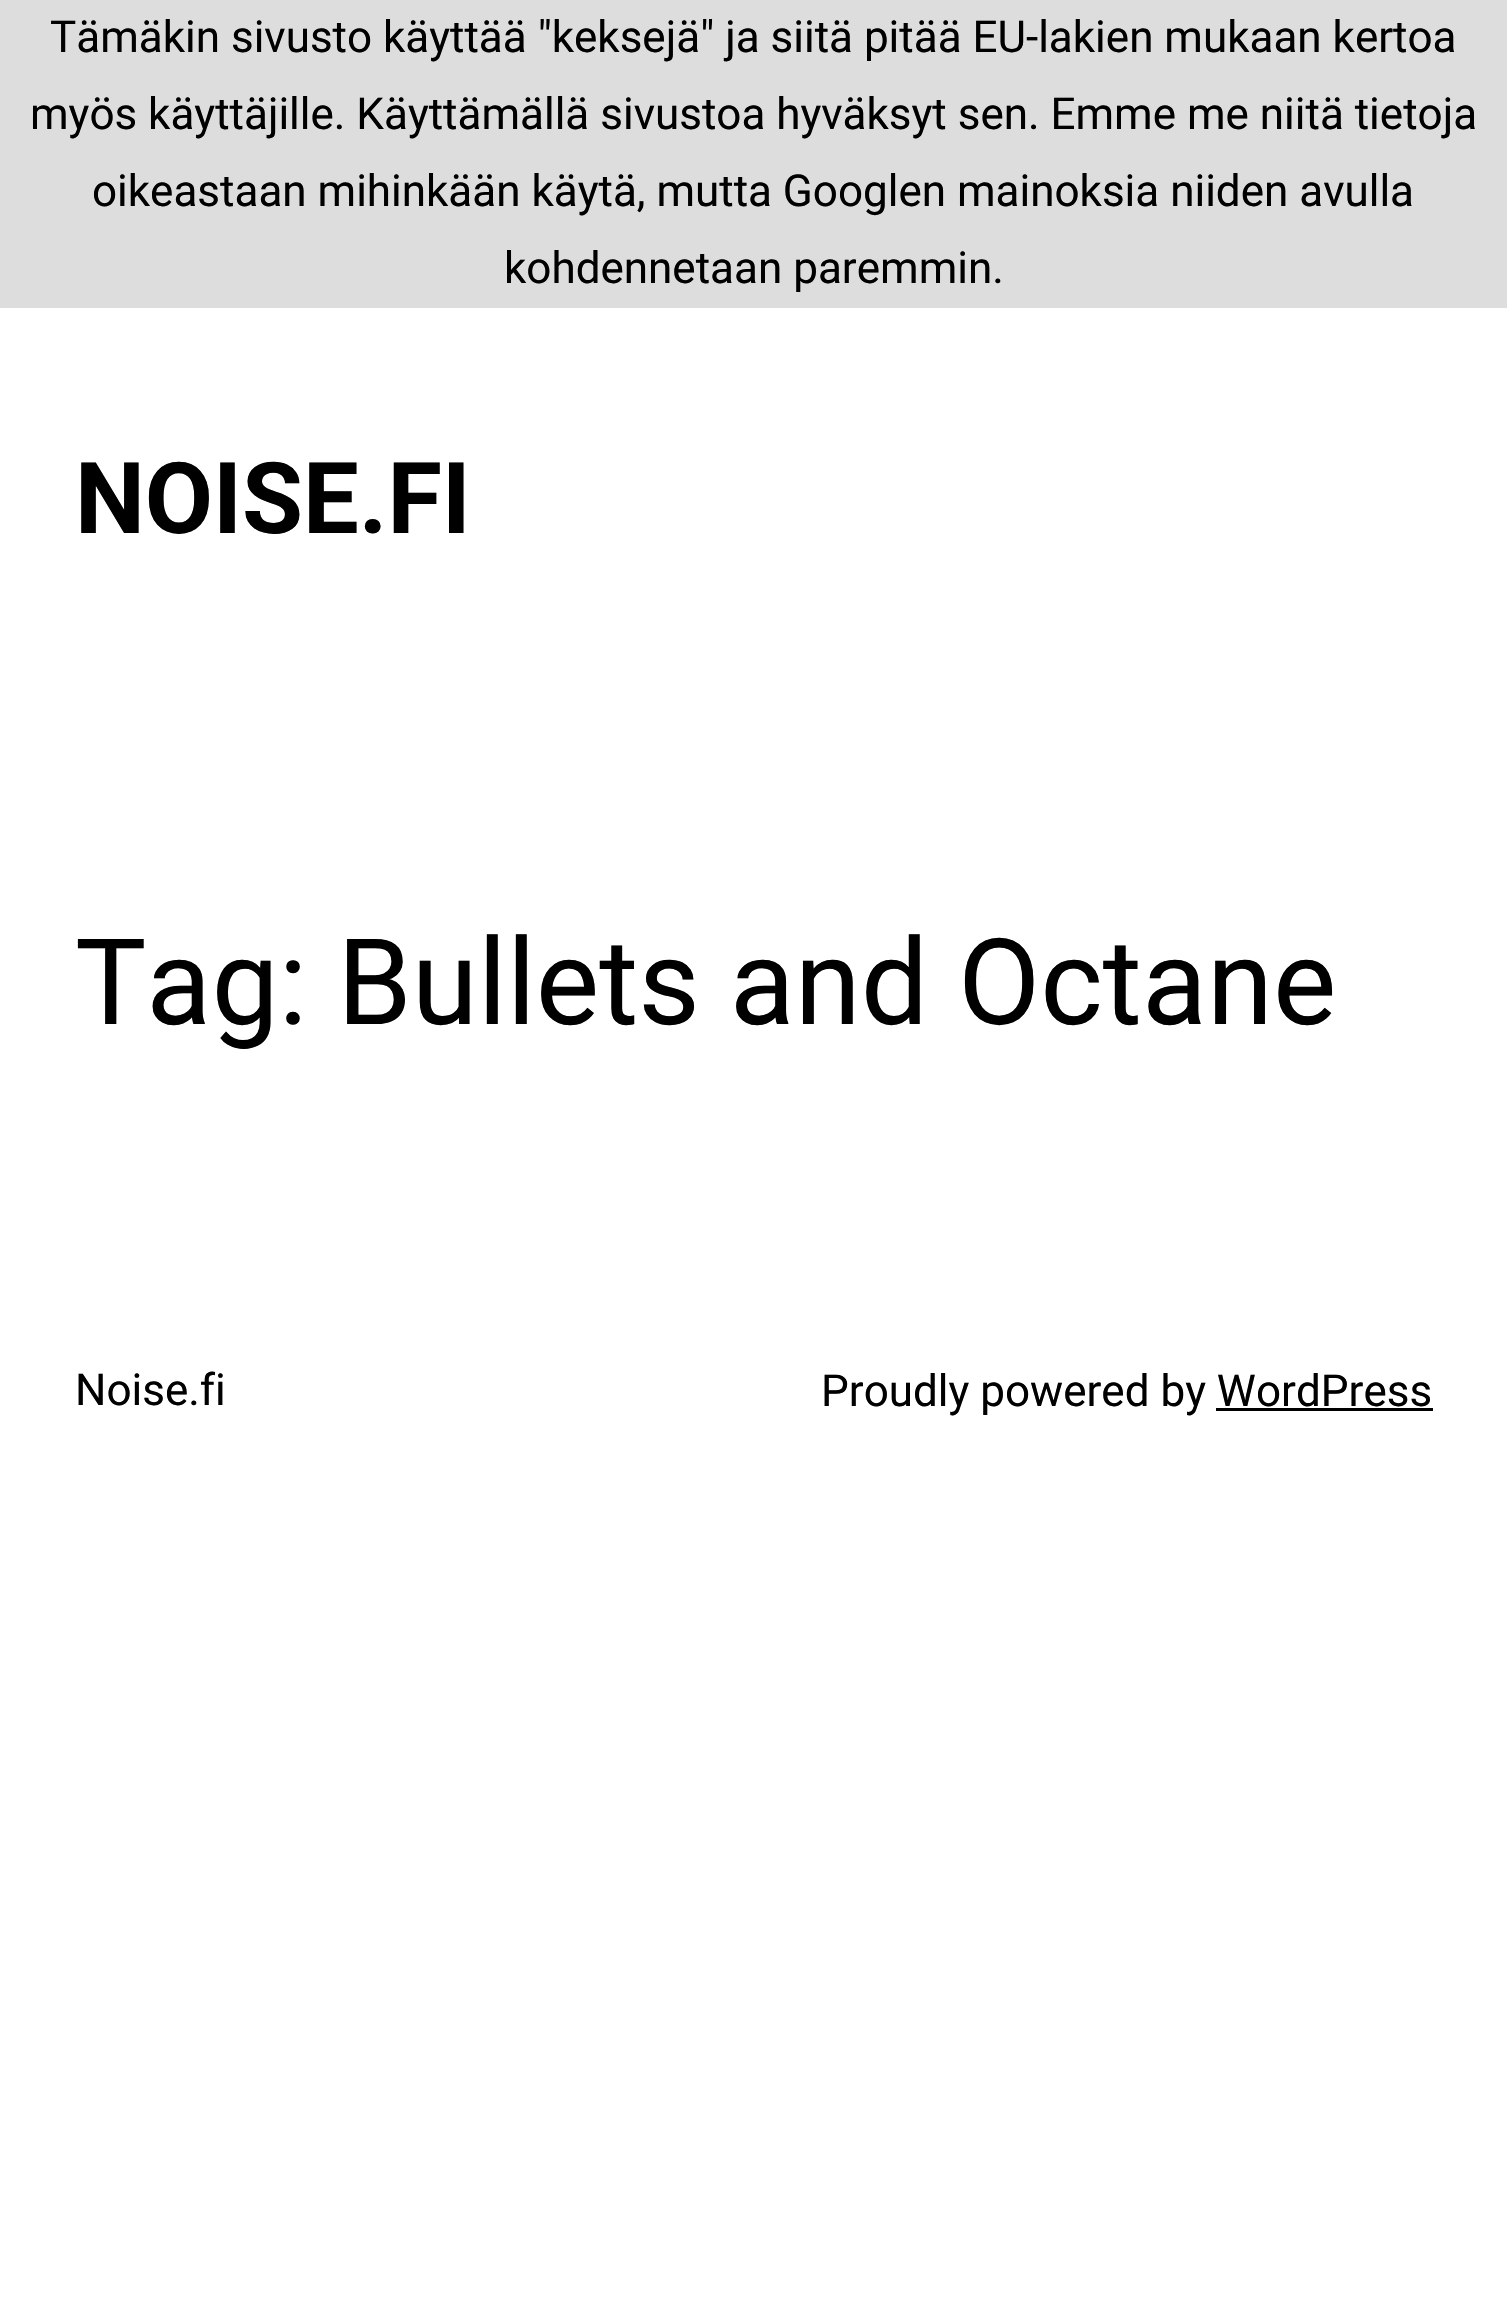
#include "include/core/SkBlurTypes.h"
#include "include/core/SkCanvas.h"
#include "include/core/SkData.h"
#include "include/core/SkFont.h"
#include "include/core/SkFontMgr.h"
#include "include/core/SkImage.h"
#include "include/core/SkMaskFilter.h"
#include "include/core/SkPaint.h"
#include "include/core/SkPathBuilder.h"
#include "include/core/SkTextBlob.h"
#include "include/effects/SkDashPathEffect.h"
#include "include/effects/SkGradientShader.h"
#include "include/utils/SkParsePath.h"

extern sk_sp<SkFontMgr> fontMgr;

static SkFont font(const char* family, int weight, float size, bool italic = false) {
    SkFontStyle style(weight, SkFontStyle::kNormal_Width,
        italic ? SkFontStyle::kItalic_Slant : SkFontStyle::kUpright_Slant);
    SkFont result(fontMgr->matchFamilyStyle(family, style), size);
    result.setSubpixel(true);
    return result;
}

static void drawLabel(SkCanvas* canvas, const char* s, float x, float y, const SkFont& font, SkColor color) {
    SkPaint ink(SkColor4f::FromColor(color));
    ink.setAntiAlias(true);
    canvas->drawString(s, x, y, font, ink);
}

static void fillRect(SkCanvas* canvas, float x, float y, float w, float h, SkColor color) {
    SkPaint ink(SkColor4f::FromColor(color));
    ink.setAntiAlias(true);
    canvas->drawRect(SkRect::MakeXYWH(x, y, w, h), ink);
}

void draw(SkCanvas* canvas) {
    SkPaint paint;
    paint.setAntiAlias(true);
    canvas->clear(0xFFFFFFFF);
    fillRect(canvas, 0, 0, 1507, 308, 0xFFDDDDDD);
    SkFont font1 = font("Roboto", 400, 44);
    drawLabel(canvas, "Tämäkin sivusto käyttää \"keksejä\" ja siitä pitää EU-lakien mukaan kertoa", 50, 52, font1, 0xFF000000);
    drawLabel(canvas, "myös käyttäjille. Käyttämällä sivustoa hyväksyt sen. Emme me niitä tietoja", 30, 129, font1, 0xFF000000);
    drawLabel(canvas, "oikeastaan mihinkään käytä, mutta Googlen mainoksia niiden avulla", 92, 206, font1, 0xFF000000);
    drawLabel(canvas, "kohdennetaan paremmin.", 504, 283, font1, 0xFF000000);
    SkFont font2 = font("Roboto", 700, 99);
    drawLabel(canvas, "NOISE.FI", 75, 533, font2, 0xFF000000);
    SkFont font3 = font("Roboto", 400, 119.6f);
    drawLabel(canvas, "Tag: Bullets and Octane", 75, 1024, font3, 0xFF000000);
    drawLabel(canvas, "Noise.fi", 75, 1405, font1, 0xFF000000);
    drawLabel(canvas, "Proudly powered by WordPress", 821, 1406, font1, 0xFF000000);
    fillRect(canvas, 1216, 1408, 217, 3, 0xFF000000);
}
